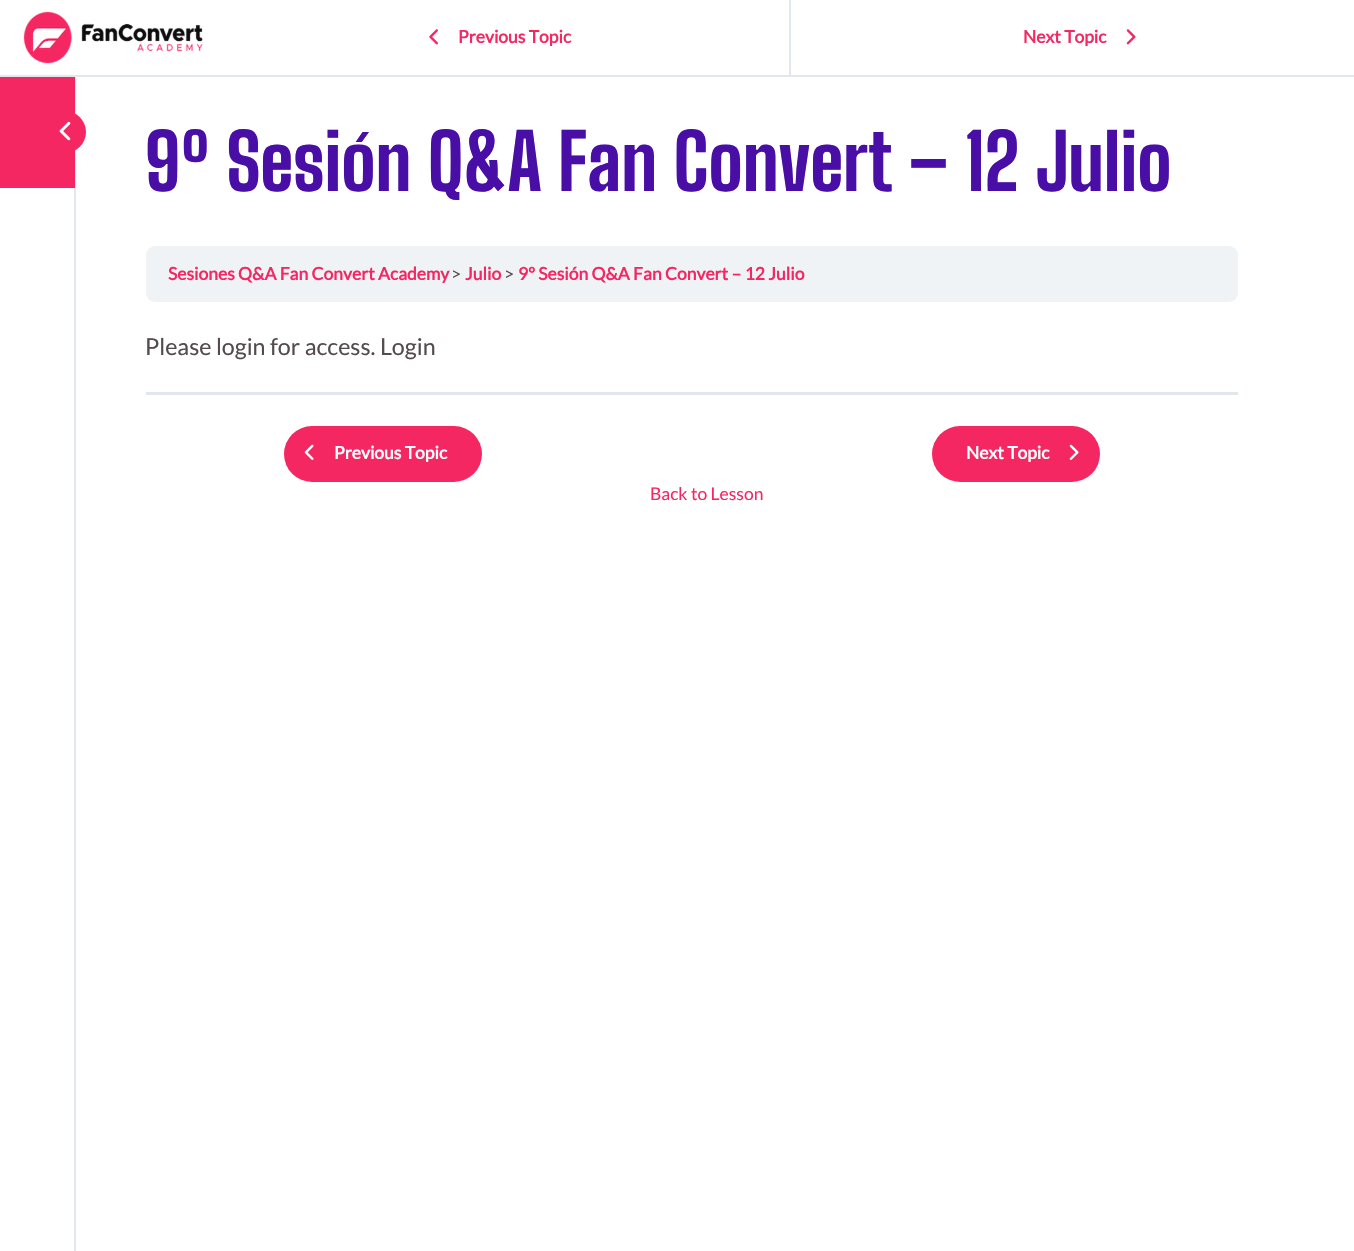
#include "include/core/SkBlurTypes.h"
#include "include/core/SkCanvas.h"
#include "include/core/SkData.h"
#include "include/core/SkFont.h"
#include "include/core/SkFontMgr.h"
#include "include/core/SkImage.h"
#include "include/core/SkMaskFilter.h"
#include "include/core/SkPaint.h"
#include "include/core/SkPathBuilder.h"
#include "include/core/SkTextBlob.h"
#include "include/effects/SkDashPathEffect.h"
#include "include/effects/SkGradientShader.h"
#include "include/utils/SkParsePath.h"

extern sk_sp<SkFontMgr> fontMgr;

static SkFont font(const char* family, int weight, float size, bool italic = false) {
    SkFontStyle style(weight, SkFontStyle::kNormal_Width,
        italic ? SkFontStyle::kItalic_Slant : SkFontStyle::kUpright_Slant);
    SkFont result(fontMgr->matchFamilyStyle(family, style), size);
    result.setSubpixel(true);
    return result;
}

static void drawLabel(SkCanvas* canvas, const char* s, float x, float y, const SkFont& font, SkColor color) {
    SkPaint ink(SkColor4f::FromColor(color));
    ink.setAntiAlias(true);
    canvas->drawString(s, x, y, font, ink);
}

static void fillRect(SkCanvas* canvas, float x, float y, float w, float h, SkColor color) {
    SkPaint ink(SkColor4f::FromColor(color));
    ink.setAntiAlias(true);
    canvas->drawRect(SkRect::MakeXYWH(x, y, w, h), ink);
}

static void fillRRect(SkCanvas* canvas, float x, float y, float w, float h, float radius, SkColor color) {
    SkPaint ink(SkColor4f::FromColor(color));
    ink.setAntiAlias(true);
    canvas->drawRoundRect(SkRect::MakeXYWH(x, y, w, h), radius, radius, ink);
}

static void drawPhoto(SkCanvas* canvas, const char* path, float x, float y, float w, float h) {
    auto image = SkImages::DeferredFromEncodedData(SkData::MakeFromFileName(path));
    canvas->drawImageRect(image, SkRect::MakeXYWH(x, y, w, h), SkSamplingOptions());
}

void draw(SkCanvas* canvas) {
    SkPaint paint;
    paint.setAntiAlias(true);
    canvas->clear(0xFFFFFFFF);
    fillRect(canvas, 74, 77, 2, 1174, 0xFFE2E7ED);
    fillRect(canvas, 0, 77, 75, 111, 0xFFF42762);
    paint.setColor(0xFFF42762);
    canvas->drawCircle(65, 132, 21, paint);
    drawPhoto(canvas, "assets/img1.png", 59, 121, 12, 20);
    fillRect(canvas, 0, 75, 1354, 2, 0xFFE2E7ED);
    drawPhoto(canvas, "assets/img2.png", 23, 11, 180, 53);
    fillRect(canvas, 789, 0, 2, 75, 0xFFE2E7ED);
    drawPhoto(canvas, "assets/img3.png", 429, 29, 9, 16);
    SkFont font1 = font("Lato", 700, 17.5f);
    drawLabel(canvas, "Previous Topic", 458, 43, font1, 0xFFF42762);
    drawLabel(canvas, "Next Topic", 1023, 43, font1, 0xFFF42762);
    drawPhoto(canvas, "assets/img4.png", 1126, 29, 10, 16);
    SkFont font2 = font("Big Shoulders Display", 800, 76.5f);
    drawLabel(canvas, "9º Sesión Q&A Fan Convert – 12 Julio", 145, 191, font2, 0xFF480EA5);
    fillRRect(canvas, 146, 246, 1092, 56, 9, 0xFFF0F3F6);
    drawLabel(canvas, "Sesiones Q&A Fan Convert Academy", 168, 280, font1, 0xFFF42762);
    SkFont font3 = font("Lato", 400, 17.5f);
    drawLabel(canvas, ">", 451, 280, font3, 0xFF554B4E);
    drawLabel(canvas, "Julio", 465, 280, font1, 0xFFF42762);
    drawLabel(canvas, ">", 504, 280, font3, 0xFF554B4E);
    drawLabel(canvas, "9º Sesión Q&A Fan Convert – 12 Julio", 518, 280, font1, 0xFFF42762);
    SkFont font4 = font("Lato", 400, 23.25f);
    drawLabel(canvas, "Please login for access. Login", 145, 355, font4, 0xFF554B4E);
    fillRect(canvas, 146, 392, 1092, 3, 0xFFE2E7ED);
    fillRRect(canvas, 284, 426, 198, 56, 28, 0xFFF42762);
    drawPhoto(canvas, "assets/img5.png", 304, 444, 10, 16);
    drawLabel(canvas, "Previous Topic", 334, 459, font1, 0xFFFFFFFF);
    fillRRect(canvas, 932, 426, 168, 56, 28, 0xFFF42762);
    drawLabel(canvas, "Next Topic", 966, 459, font1, 0xFFFFFFFF);
    drawPhoto(canvas, "assets/img6.png", 1069, 444, 10, 16);
    drawLabel(canvas, "Back to Lesson", 650, 500, font3, 0xFFF42762);
}
